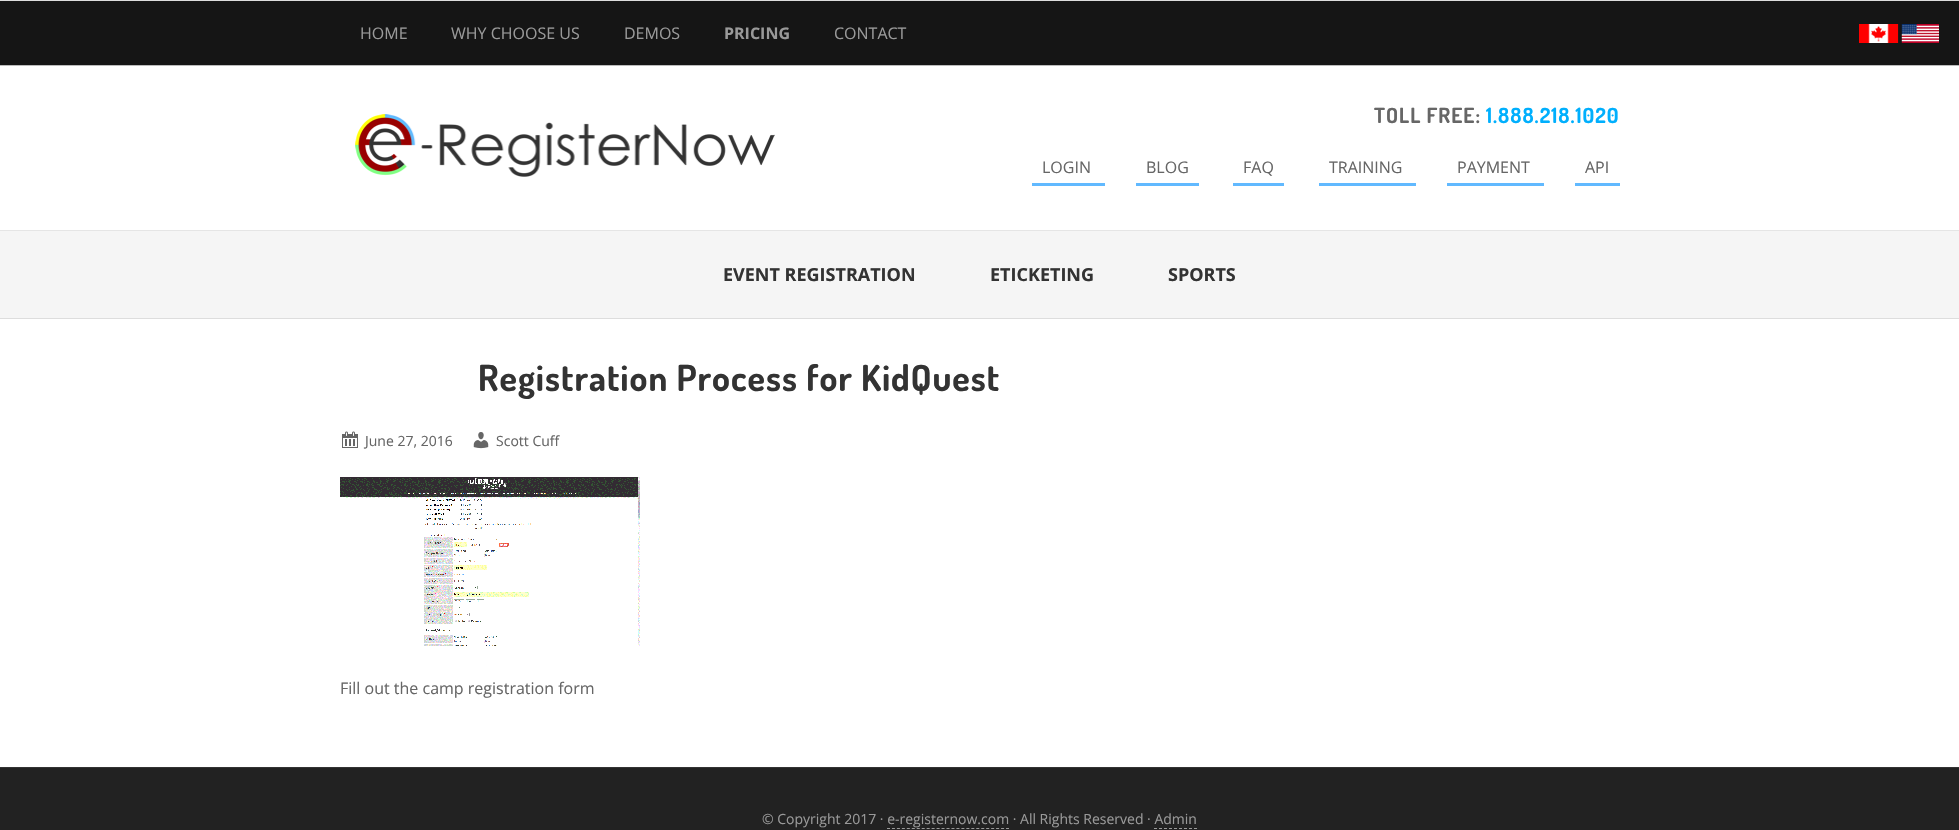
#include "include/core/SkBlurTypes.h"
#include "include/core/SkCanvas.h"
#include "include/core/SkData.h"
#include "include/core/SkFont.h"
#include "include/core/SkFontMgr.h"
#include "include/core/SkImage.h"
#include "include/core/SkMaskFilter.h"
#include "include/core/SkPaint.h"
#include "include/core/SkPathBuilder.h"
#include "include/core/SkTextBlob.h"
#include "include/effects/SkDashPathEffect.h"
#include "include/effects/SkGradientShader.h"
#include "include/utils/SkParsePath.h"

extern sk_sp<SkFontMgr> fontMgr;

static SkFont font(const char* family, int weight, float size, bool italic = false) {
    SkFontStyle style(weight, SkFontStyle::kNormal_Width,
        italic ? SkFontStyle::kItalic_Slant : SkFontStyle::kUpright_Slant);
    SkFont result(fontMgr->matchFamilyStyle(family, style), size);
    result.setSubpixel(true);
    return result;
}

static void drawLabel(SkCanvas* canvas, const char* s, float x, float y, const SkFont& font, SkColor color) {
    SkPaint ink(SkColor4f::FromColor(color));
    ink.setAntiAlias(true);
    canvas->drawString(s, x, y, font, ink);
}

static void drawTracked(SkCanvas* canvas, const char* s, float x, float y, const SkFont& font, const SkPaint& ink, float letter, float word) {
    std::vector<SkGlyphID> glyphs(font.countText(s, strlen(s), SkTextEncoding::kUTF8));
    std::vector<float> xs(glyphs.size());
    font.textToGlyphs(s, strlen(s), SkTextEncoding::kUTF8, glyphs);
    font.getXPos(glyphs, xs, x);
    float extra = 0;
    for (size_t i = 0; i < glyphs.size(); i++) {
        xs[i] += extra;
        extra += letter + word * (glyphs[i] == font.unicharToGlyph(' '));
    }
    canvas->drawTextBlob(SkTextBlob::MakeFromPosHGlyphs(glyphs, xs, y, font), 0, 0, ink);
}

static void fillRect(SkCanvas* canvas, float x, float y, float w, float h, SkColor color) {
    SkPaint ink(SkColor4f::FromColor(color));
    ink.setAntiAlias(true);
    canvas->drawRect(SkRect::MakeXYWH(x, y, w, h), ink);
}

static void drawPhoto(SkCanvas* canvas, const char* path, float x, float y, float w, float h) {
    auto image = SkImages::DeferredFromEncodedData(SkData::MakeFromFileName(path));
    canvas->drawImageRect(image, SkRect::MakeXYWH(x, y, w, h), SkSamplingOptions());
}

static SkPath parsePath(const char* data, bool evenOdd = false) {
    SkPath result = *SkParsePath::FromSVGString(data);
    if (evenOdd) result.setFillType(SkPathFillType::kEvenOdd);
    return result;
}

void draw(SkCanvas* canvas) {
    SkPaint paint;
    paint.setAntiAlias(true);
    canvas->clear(0xFFFFFFFF);
    fillRect(canvas, 0, 1, 1959, 64, 0xFF151515);
    drawPhoto(canvas, "assets/img1.png", 1859, 24, 80, 19);
    fillRect(canvas, 0, 0, 1959, 1, 0xFFDDDDDD);
    fillRect(canvas, 0, 65, 1959, 1, 0xFFBBBBBB);
    SkFont font1 = font("Open Sans", 400, 16);
    drawLabel(canvas, "HOME", 360, 39, font1, 0xFF999999);
    drawLabel(canvas, "WHY CHOOSE US", 451, 39, font1, 0xFF999999);
    drawLabel(canvas, "DEMOS", 624, 39, font1, 0xFF999999);
    SkFont font2 = font("Open Sans", 700, 16);
    drawLabel(canvas, "PRICING", 724, 39, font2, 0xFF999999);
    drawLabel(canvas, "CONTACT", 834, 39, font1, 0xFF999999);
    drawPhoto(canvas, "assets/img2.png", 355, 114, 420, 63);
    SkFont font3 = font("Dosis", 700, 21);
    paint.setColor(0xFF666666);
    drawTracked(canvas, "TOLL FREE:", 1374, 123, font3, paint, 1, 0);
    paint.setColor(0xFF00AFFD);
    drawTracked(canvas, "1.888.218.1020", 1486, 123, font3, paint, 1, 0);
    drawLabel(canvas, "LOGIN", 1042, 173, font1, 0xFF666666);
    fillRect(canvas, 1032, 183, 73, 3, 0xFF61B9FF);
    drawLabel(canvas, "BLOG", 1146, 173, font1, 0xFF666666);
    fillRect(canvas, 1136, 183, 63, 3, 0xFF61B9FF);
    drawLabel(canvas, "FAQ", 1243, 173, font1, 0xFF666666);
    fillRect(canvas, 1233, 183, 51, 3, 0xFF61B9FF);
    drawLabel(canvas, "TRAINING", 1329, 173, font1, 0xFF666666);
    fillRect(canvas, 1319, 183, 97, 3, 0xFF61B9FF);
    drawLabel(canvas, "PAYMENT", 1457, 173, font1, 0xFF666666);
    fillRect(canvas, 1447, 183, 97, 3, 0xFF61B9FF);
    drawLabel(canvas, "API", 1585, 173, font1, 0xFF666666);
    fillRect(canvas, 1575, 183, 45, 3, 0xFF61B9FF);
    fillRect(canvas, 0, 231, 1959, 87, 0xFFF5F5F5);
    fillRect(canvas, 0, 230, 1959, 1, 0xFFE5E5E5);
    fillRect(canvas, 0, 318, 1959, 1, 0xFFDDDDDD);
    SkFont font4 = font("Open Sans", 700, 18);
    drawLabel(canvas, "EVENT REGISTRATION", 723, 281, font4, 0xFF333333);
    drawLabel(canvas, "ETICKETING", 990, 281, font4, 0xFF333333);
    drawLabel(canvas, "SPORTS", 1168, 281, font4, 0xFF333333);
    SkFont font5 = font("Dosis", 700, 36);
    paint.setColor(0xFF333333);
    drawTracked(canvas, "Registration Process for KidQuest", 478, 391, font5, paint, 1, 0);
    drawPhoto(canvas, "assets/img3.png", 342, 431, 16, 17);
    SkFont font6 = font("Open Sans", 400, 14);
    drawLabel(canvas, "June 27, 2016", 365, 446, font6, 0xFF666666);
    drawPhoto(canvas, "assets/img4.png", 473, 432, 16, 17);
    drawLabel(canvas, "Scott Cuff", 496, 446, font6, 0xFF666666);
    drawPhoto(canvas, "assets/img5.png", 340, 477, 300, 169);
    drawLabel(canvas, "Fill out the camp registration form", 340, 694, font1, 0xFF666666);
    fillRect(canvas, 0, 768, 1959, 62, 0xFF222222);
    fillRect(canvas, 0, 767, 1959, 1, 0xFF333333);
    drawLabel(canvas, "© Copyright 2017 · e-registernow.com · All Rights Reserved · Admin", 762, 824, font6, 0xFF999999);
    paint.setStroke(true);
    paint.setStrokeWidth(1);
    paint.setColor(0xFF999999);
    paint.setPathEffect(SkDashPathEffect::Make({{3, 1.96f}}, 0));
    canvas->drawPath(parsePath("M887 828.5H1009"), paint);
    paint.setPathEffect(nullptr);
    paint.setPathEffect(SkDashPathEffect::Make({{3, 2}}, 0));
    canvas->drawPath(parsePath("M1154 828.5H1197"), paint);
    paint.setPathEffect(nullptr);
}
